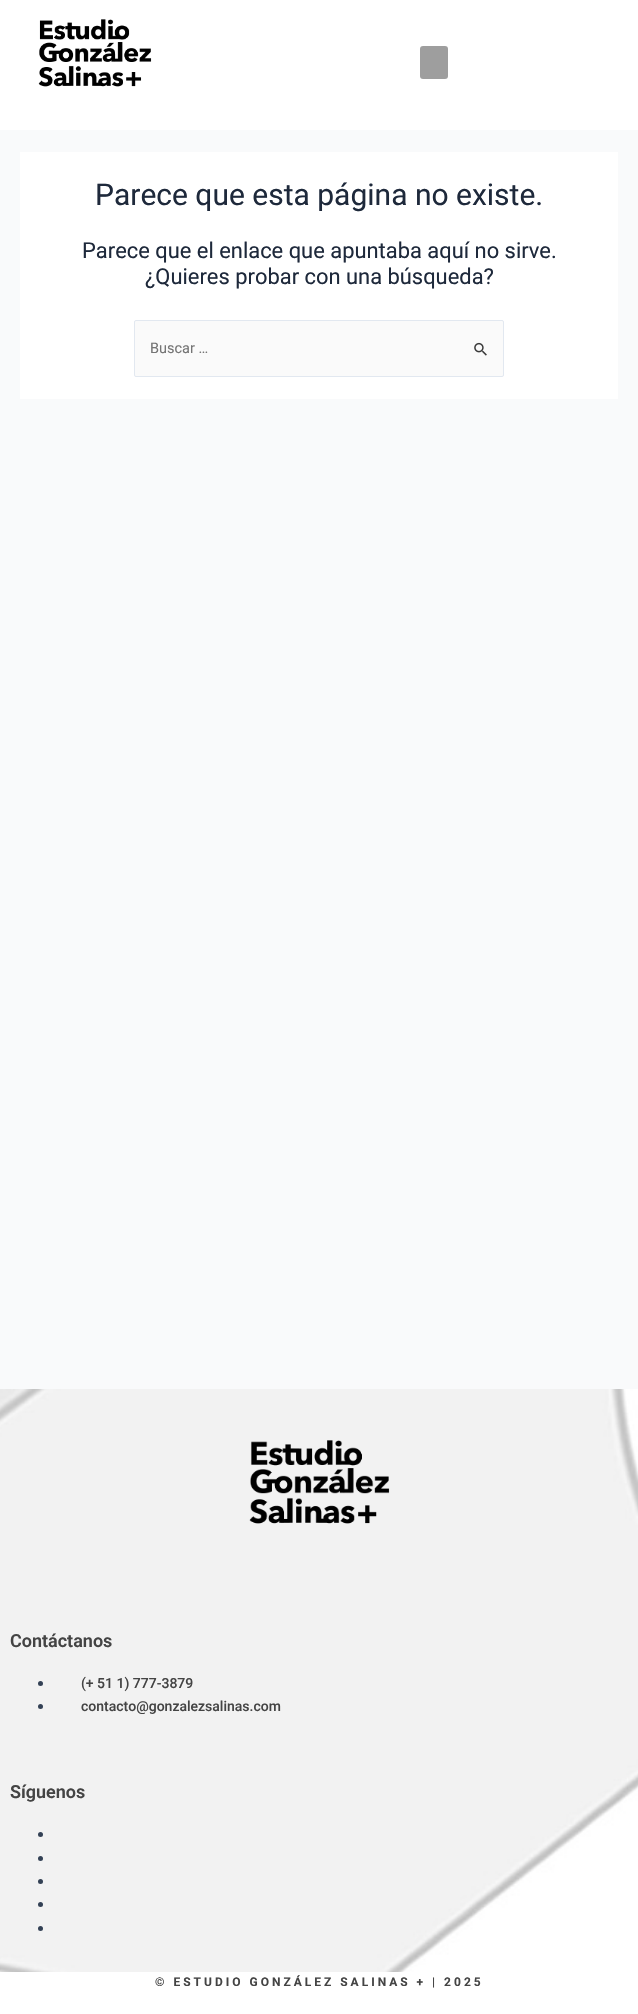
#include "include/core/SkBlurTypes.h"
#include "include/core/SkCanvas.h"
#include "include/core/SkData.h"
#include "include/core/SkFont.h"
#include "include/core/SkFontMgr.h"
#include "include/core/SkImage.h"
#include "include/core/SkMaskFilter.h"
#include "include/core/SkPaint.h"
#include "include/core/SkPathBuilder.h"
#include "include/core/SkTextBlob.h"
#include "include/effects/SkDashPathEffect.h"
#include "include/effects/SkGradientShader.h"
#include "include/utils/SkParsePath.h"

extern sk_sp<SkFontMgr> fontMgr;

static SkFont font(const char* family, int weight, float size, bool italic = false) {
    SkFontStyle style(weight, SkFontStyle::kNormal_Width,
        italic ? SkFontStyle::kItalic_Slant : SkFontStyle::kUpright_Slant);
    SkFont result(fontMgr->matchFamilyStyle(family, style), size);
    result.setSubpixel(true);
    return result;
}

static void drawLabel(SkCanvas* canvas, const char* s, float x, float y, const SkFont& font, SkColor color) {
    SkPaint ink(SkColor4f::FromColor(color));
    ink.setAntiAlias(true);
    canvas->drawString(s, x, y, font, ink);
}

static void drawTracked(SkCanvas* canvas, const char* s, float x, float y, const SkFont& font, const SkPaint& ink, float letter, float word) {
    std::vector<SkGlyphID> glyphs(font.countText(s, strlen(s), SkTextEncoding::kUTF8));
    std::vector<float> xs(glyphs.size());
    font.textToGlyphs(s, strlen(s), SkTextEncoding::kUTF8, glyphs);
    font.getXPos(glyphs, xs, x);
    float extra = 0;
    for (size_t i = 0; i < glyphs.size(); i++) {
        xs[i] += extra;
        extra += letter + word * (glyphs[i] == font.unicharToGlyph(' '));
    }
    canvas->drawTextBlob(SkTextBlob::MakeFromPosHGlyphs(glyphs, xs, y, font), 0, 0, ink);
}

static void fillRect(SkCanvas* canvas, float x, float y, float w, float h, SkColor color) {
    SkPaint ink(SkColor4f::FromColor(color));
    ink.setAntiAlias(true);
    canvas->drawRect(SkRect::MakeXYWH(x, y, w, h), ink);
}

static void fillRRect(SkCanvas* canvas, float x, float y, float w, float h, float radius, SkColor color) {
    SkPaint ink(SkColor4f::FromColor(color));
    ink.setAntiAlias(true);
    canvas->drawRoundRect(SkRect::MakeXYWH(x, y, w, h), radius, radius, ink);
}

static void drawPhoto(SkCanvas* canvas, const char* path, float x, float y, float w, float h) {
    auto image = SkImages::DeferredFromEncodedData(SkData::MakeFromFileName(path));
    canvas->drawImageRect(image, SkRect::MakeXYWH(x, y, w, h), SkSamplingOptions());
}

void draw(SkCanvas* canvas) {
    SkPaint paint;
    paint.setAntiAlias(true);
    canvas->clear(0xFFF9FAFB);
    fillRect(canvas, 0, 0, 638, 130, 0xFFFFFFFF);
    drawPhoto(canvas, "assets/img1.png", 38, 19, 114, 68);
    fillRRect(canvas, 420, 46, 28, 33, 3, 0xFF9E9E9E);
    fillRect(canvas, 20, 152, 598, 247, 0xFFFFFFFF);
    SkFont font1 = font("Roboto", 400, 30);
    drawLabel(canvas, "Parece que esta página no existe.", 95, 205, font1, 0xFF1E293B);
    SkFont font2 = font("Roboto", 400, 21.9f);
    drawLabel(canvas, "Parece que el enlace que apuntaba aquí no sirve.", 82, 258, font2, 0xFF1E293B);
    drawLabel(canvas, "¿Quieres probar con una búsqueda?", 145, 284, font2, 0xFF1E293B);
    paint.setColor(0xFFFAFAFA);
    canvas->drawRoundRect(SkRect::MakeXYWH(134.5f, 320.5f, 369, 56), 1.5f, 1.5f, paint);
    paint.setStroke(true);
    paint.setStrokeWidth(1);
    paint.setColor(0xFFE2E8F0);
    canvas->drawRoundRect(SkRect::MakeXYWH(134.5f, 320.5f, 369, 56), 1.5f, 1.5f, paint);
    SkFont font3 = font("Roboto", 400, 14.5f);
    drawLabel(canvas, "Buscar …", 150, 353, font3, 0xFF757575);
    drawPhoto(canvas, "assets/img2.png", 474, 342, 13, 14);
    drawPhoto(canvas, "assets/img3.png", 0, 1389, 638, 583);
    drawPhoto(canvas, "assets/img4.png", 249, 1440, 141, 84);
    SkFont font4 = font("Roboto", 600, 18);
    drawLabel(canvas, "Contáctanos", 10, 1647, font4, 0xFF444444);
    paint.setStroke(false);
    paint.setColor(0xFF334155);
    canvas->drawCircle(40.5f, 1683.5f, 2.5f, paint);
    SkFont font5 = font("Roboto", 500, 14);
    drawLabel(canvas, "(+ 51 1) 777-3879", 81, 1688, font5, 0xFF444444);
    canvas->drawCircle(40.5f, 1706.5f, 2.5f, paint);
    drawLabel(canvas, "contacto@gonzalezsalinas.com", 81, 1711, font5, 0xFF444444);
    drawLabel(canvas, "Síguenos", 10, 1798, font4, 0xFF444444);
    canvas->drawCircle(40.5f, 1834.5f, 2.5f, paint);
    canvas->drawCircle(40.5f, 1858.5f, 2.5f, paint);
    canvas->drawCircle(40.5f, 1881.5f, 2.5f, paint);
    canvas->drawCircle(40.5f, 1904.5f, 2.5f, paint);
    canvas->drawCircle(40.5f, 1928.5f, 2.5f, paint);
    fillRect(canvas, 0, 1972, 638, 42, 0xFFFFFFFF);
    SkFont font6 = font("Roboto", 700, 12);
    paint.setColor(0xFF444444);
    drawTracked(canvas, "© ESTUDIO GONZÁLEZ SALINAS + | 2025", 155, 1986, font6, paint, 3, 0);
}
